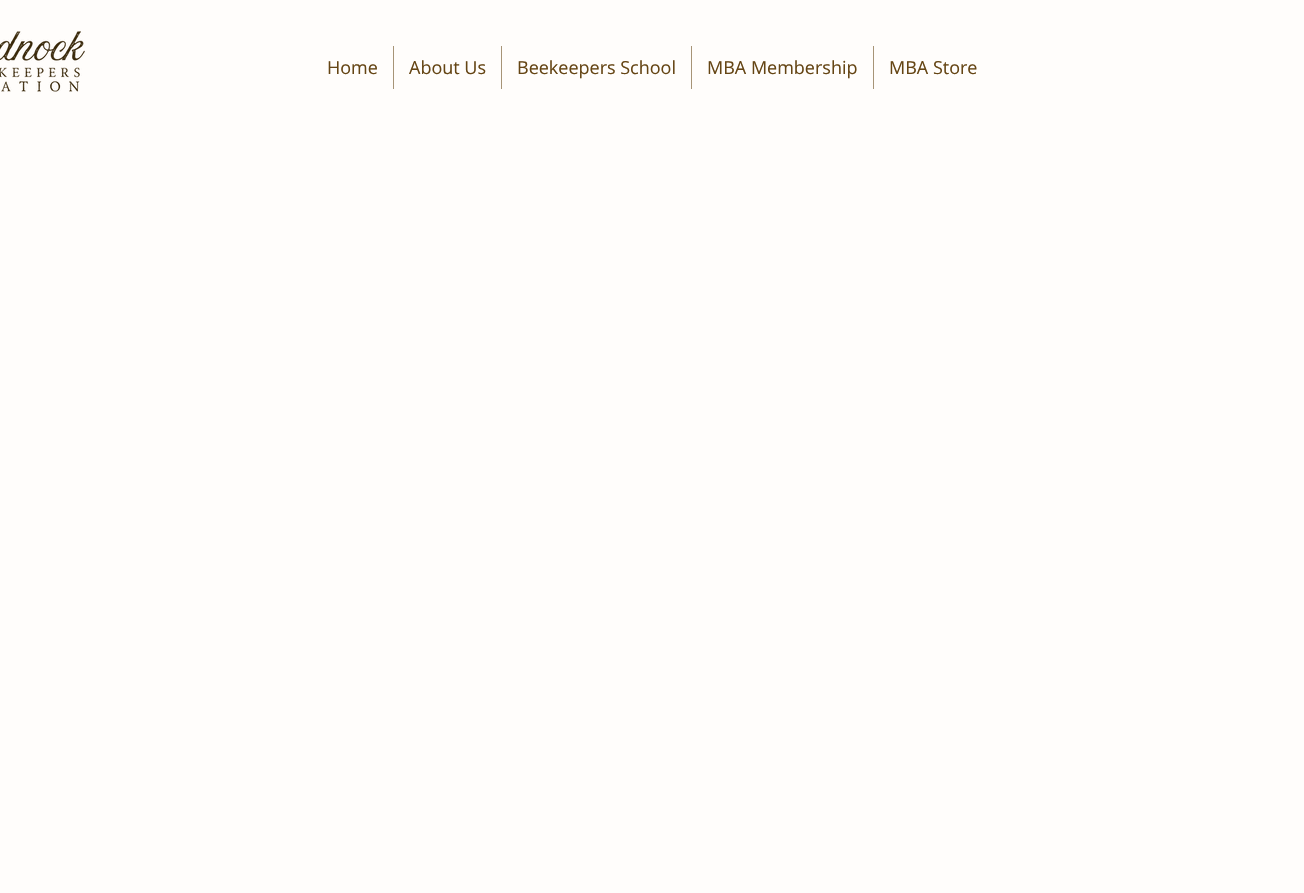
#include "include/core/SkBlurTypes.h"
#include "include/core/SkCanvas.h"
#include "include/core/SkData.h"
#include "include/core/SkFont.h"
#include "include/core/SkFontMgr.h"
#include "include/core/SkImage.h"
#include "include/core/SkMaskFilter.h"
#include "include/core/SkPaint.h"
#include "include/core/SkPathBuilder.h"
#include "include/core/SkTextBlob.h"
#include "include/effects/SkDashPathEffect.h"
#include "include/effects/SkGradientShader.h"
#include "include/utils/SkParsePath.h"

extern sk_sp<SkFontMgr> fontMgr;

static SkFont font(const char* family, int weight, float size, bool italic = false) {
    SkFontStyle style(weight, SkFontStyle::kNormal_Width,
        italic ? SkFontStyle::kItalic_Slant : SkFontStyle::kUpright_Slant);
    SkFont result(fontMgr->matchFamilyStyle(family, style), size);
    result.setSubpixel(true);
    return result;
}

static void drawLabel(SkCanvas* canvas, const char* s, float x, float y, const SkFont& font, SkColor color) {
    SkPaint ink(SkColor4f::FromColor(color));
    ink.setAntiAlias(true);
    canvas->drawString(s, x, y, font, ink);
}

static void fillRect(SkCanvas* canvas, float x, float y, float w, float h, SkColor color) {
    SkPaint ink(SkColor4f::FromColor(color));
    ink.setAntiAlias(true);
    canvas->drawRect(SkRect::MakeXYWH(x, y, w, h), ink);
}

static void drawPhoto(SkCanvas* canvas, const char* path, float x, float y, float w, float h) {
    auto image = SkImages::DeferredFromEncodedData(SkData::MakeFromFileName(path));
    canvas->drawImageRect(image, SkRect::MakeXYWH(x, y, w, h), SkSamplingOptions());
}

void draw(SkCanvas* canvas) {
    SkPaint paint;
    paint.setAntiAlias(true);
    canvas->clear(0xFFFFFDFB);
    drawPhoto(canvas, "assets/img1.png", 0, 31, 85, 61);
    SkFont font1 = font("Open Sans", 400, 18);
    drawLabel(canvas, "Home", 327, 74, font1, 0xFF654514);
    fillRect(canvas, 393, 46, 1, 43, 0xFFA79477);
    drawLabel(canvas, "About Us", 409, 74, font1, 0xFF654514);
    fillRect(canvas, 501, 46, 1, 43, 0xFFA79477);
    drawLabel(canvas, "Beekeepers School", 517, 74, font1, 0xFF654514);
    fillRect(canvas, 691, 46, 1, 43, 0xFFA79477);
    drawLabel(canvas, "MBA Membership", 707, 74, font1, 0xFF654514);
    fillRect(canvas, 873, 46, 1, 43, 0xFFA79477);
    drawLabel(canvas, "MBA Store", 889, 74, font1, 0xFF654514);
}
